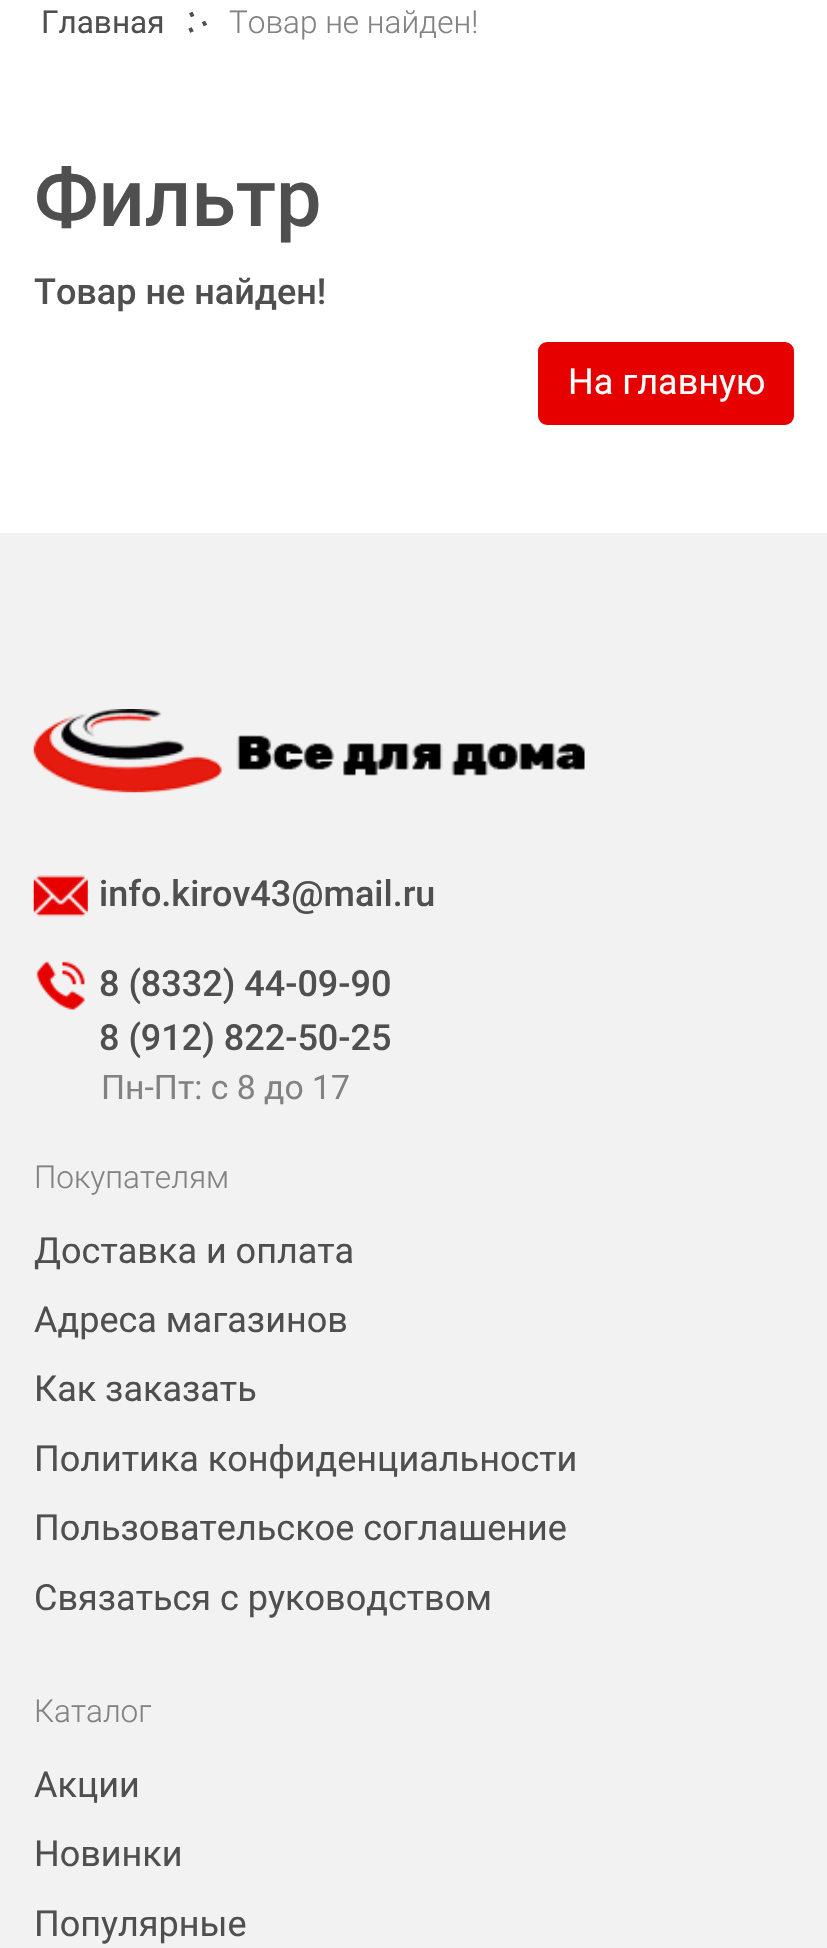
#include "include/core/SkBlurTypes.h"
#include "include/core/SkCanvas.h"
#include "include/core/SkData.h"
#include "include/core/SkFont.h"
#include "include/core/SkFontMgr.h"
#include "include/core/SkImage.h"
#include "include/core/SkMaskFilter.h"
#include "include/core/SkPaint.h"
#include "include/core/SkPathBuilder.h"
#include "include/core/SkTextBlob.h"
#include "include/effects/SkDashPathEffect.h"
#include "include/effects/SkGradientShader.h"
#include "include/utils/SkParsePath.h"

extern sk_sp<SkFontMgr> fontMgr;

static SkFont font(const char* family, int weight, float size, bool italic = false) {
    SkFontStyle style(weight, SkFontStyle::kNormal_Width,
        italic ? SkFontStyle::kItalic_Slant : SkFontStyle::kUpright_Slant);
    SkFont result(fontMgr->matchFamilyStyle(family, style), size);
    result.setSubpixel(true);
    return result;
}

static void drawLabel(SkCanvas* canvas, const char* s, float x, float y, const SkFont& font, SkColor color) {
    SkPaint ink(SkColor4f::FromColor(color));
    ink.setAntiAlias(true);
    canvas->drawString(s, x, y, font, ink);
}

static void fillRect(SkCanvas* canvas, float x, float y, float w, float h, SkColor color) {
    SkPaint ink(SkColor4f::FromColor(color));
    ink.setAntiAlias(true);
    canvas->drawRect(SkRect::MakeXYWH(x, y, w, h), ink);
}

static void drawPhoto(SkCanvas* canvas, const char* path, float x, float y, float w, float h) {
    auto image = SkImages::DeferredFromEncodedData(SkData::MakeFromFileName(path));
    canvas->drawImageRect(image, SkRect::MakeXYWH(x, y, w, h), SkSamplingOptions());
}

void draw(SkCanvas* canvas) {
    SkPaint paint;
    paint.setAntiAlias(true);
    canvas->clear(0xFFFFFFFF);
    SkFont font1 = font("Roboto", 400, 31.5f);
    drawLabel(canvas, "Главная", 41, 33, font1, 0xFF4F4F4F);
    SkFont font2 = font("DejaVu Sans", 400, 36);
    canvas->save();
    canvas->rotate(-26, 190, 37);
    drawLabel(canvas, "∴", 190, 37, font2, 0xFF4F4F4F);
    canvas->restore();
    SkFont font3 = font("Roboto", 300, 31.5f);
    drawLabel(canvas, "Товар не найден!", 229, 33, font3, 0xFF828282);
    SkFont font4 = font("Roboto", 500, 81);
    drawLabel(canvas, "Фильтр", 34, 226, font4, 0xFF4F4F4F);
    SkFont font5 = font("Roboto", 500, 36);
    drawLabel(canvas, "Товар не найден!", 34, 304, font5, 0xFF4F4F4F);
    paint.setColor(0xFFE60000);
    canvas->drawRoundRect(SkRect::MakeXYWH(539, 343, 254, 81), 8, 8, paint);
    paint.setStroke(true);
    paint.setStrokeWidth(2);
    canvas->drawRoundRect(SkRect::MakeXYWH(539, 343, 254, 81), 8, 8, paint);
    SkFont font6 = font("Roboto", 400, 36);
    drawLabel(canvas, "На главную", 568, 394, font6, 0xFFFFFFFF);
    fillRect(canvas, 0, 533, 827, 1415, 0xFFF2F2F2);
    drawPhoto(canvas, "assets/img1.png", 33, 709, 552, 84);
    drawPhoto(canvas, "assets/img2.png", 33, 875, 55, 42);
    drawLabel(canvas, "info.kirov43@mail.ru", 99, 906, font5, 0xFF4F4F4F);
    drawPhoto(canvas, "assets/img3.png", 36, 961, 49, 49);
    drawLabel(canvas, "8 (8332) 44-09-90", 99, 996, font5, 0xFF4F4F4F);
    drawLabel(canvas, "8 (912) 822-50-25", 99, 1050, font5, 0xFF4F4F4F);
    SkFont font7 = font("Roboto", 400, 33.75f);
    drawLabel(canvas, "Пн-Пт: c 8 до 17", 101, 1099, font7, 0xFF828282);
    drawLabel(canvas, "Покупателям", 34, 1188, font3, 0xFF828282);
    drawLabel(canvas, "Доставка и оплата", 34, 1263, font6, 0xFF4F4F4F);
    drawLabel(canvas, "Адреса магазинов", 34, 1332, font6, 0xFF4F4F4F);
    drawLabel(canvas, "Как заказать", 34, 1401, font6, 0xFF4F4F4F);
    drawLabel(canvas, "Политика конфиденциальности", 34, 1471, font6, 0xFF4F4F4F);
    drawLabel(canvas, "Пользовательское соглашение", 34, 1540, font6, 0xFF4F4F4F);
    drawLabel(canvas, "Связаться с руководством", 34, 1610, font6, 0xFF4F4F4F);
    drawLabel(canvas, "Каталог", 34, 1722, font3, 0xFF828282);
    drawLabel(canvas, "Акции", 34, 1797, font6, 0xFF4F4F4F);
    drawLabel(canvas, "Новинки", 34, 1866, font6, 0xFF4F4F4F);
    drawLabel(canvas, "Популярные", 34, 1936, font6, 0xFF4F4F4F);
}
